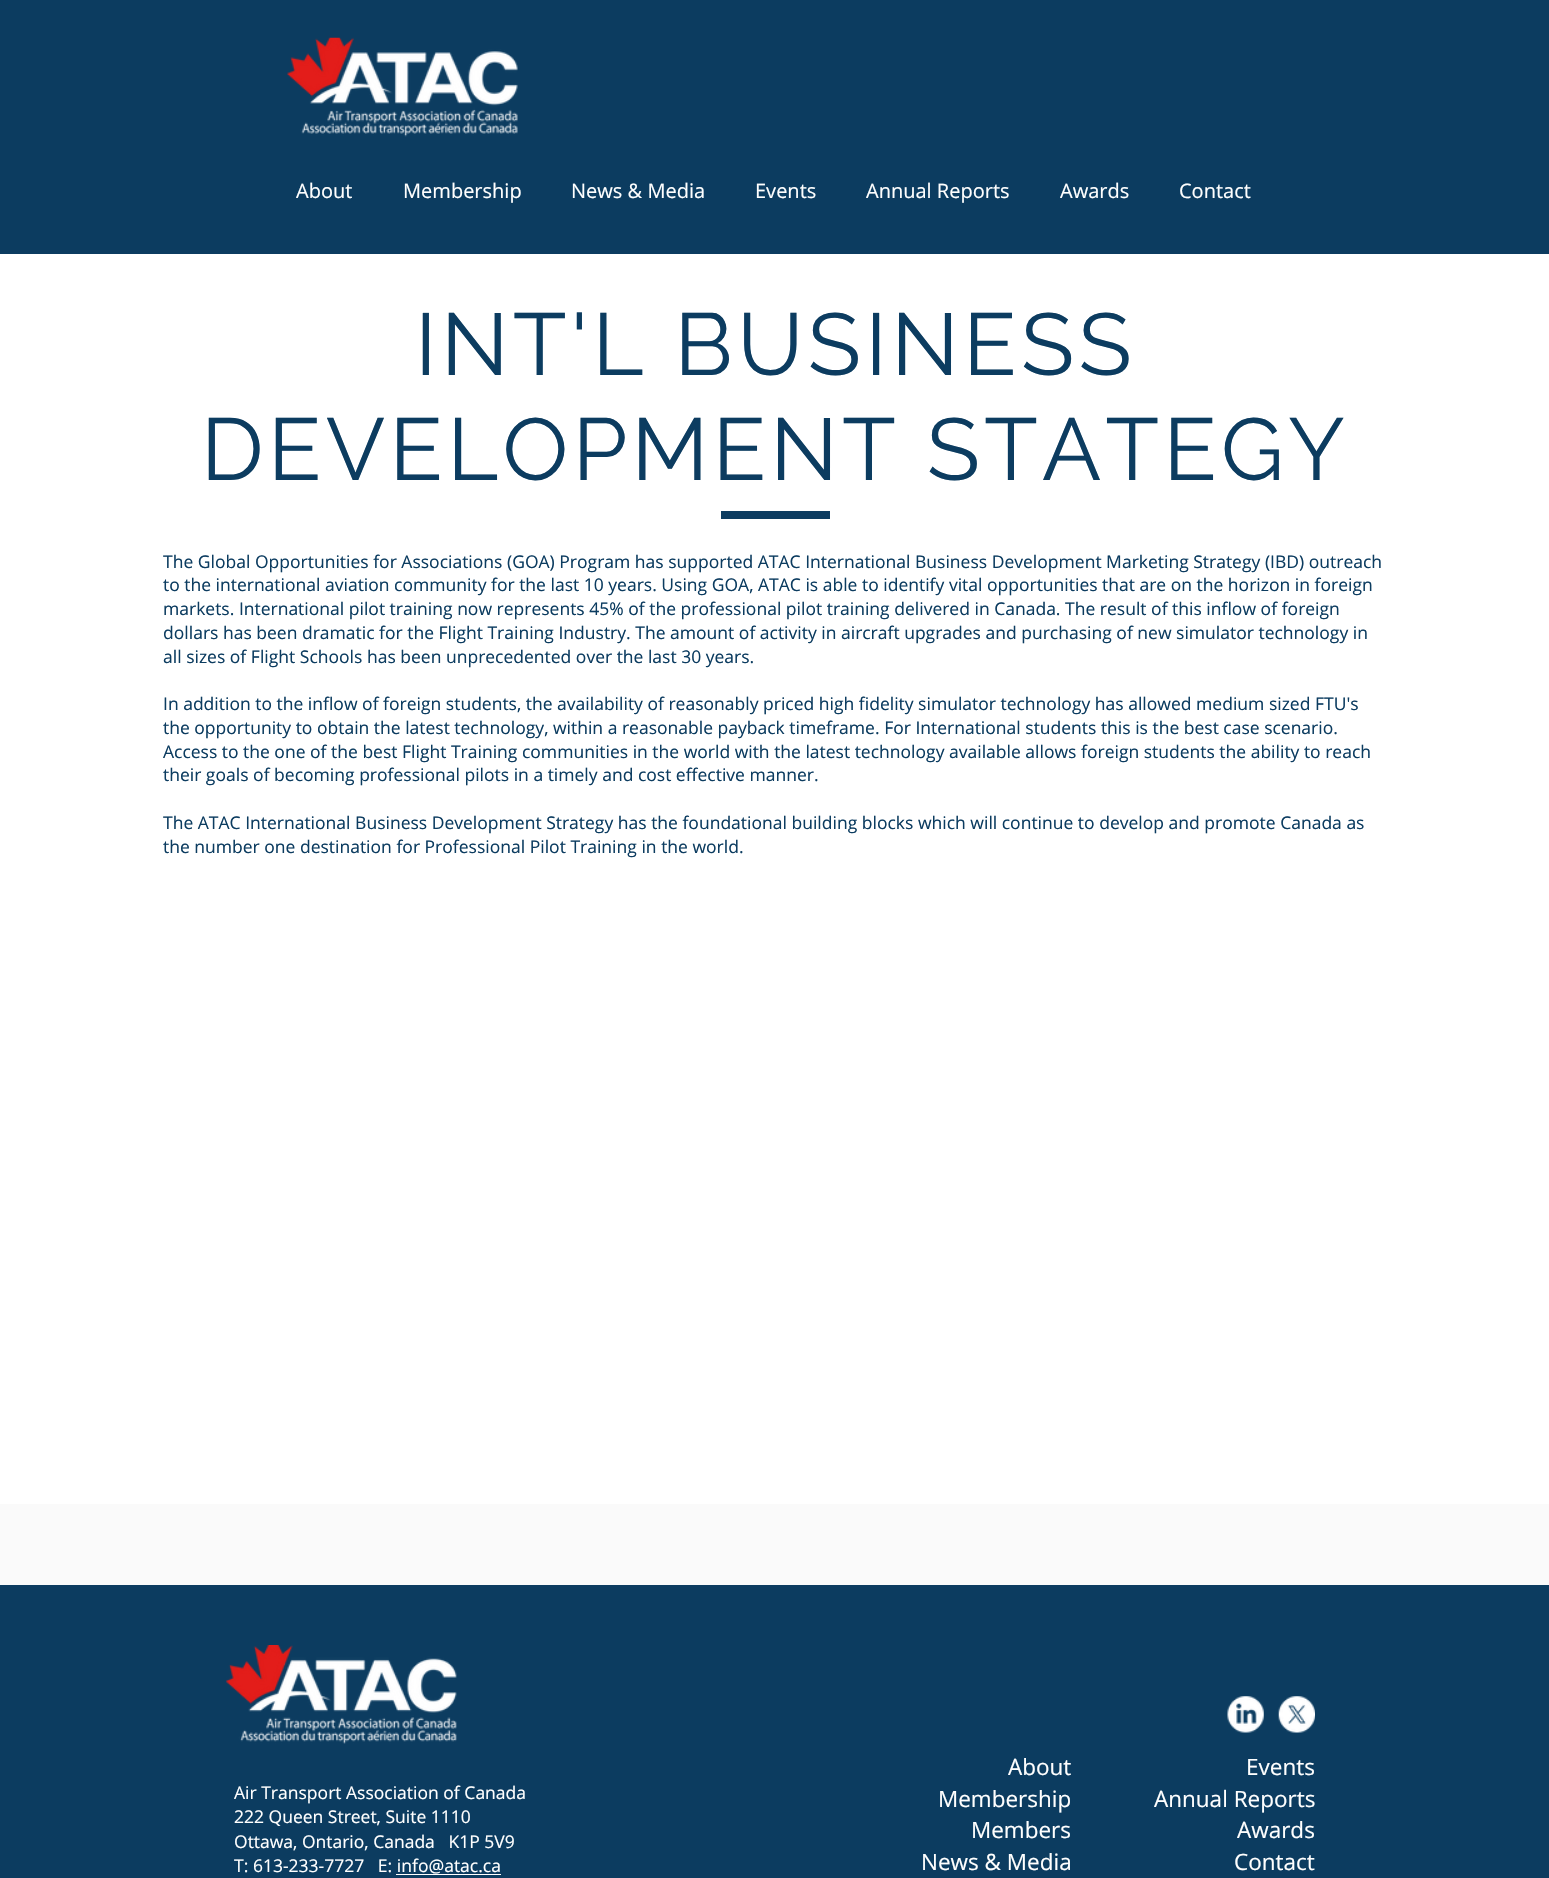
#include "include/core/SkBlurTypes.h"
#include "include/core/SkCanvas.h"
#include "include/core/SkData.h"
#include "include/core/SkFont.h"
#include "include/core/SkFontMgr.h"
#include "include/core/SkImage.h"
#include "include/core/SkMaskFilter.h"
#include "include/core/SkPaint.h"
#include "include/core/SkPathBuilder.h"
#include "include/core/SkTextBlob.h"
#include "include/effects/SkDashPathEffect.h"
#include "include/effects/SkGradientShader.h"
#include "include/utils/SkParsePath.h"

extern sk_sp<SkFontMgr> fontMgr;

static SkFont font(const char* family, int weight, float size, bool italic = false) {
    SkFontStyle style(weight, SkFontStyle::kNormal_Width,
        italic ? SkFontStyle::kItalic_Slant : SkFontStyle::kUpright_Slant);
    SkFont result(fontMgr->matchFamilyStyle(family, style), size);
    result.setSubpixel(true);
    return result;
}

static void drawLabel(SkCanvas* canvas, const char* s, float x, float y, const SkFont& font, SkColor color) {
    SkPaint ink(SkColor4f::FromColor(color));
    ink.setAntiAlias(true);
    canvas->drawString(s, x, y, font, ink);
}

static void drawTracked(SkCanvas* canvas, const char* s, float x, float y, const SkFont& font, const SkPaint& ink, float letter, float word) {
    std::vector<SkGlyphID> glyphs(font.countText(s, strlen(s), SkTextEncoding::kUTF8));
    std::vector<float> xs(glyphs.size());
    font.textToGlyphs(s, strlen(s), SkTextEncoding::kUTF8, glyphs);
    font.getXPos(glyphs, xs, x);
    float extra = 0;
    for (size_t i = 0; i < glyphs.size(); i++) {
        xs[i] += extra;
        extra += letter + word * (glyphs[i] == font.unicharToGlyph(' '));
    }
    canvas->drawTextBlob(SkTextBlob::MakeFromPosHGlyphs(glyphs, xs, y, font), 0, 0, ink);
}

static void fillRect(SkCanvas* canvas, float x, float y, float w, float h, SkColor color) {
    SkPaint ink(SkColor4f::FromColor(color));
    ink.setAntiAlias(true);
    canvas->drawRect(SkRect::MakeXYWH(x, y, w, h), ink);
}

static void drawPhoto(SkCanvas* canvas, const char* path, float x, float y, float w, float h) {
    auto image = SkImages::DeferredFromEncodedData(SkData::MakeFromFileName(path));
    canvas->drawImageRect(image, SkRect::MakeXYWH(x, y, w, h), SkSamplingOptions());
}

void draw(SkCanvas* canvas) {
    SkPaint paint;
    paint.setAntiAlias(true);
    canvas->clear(0xFFFFFFFF);
    fillRect(canvas, 0, 0, 1549, 254, 0xFF0C3C60);
    drawPhoto(canvas, "assets/img1.png", 287, 37, 231, 100);
    SkFont font1 = font("Open Sans", 400, 20);
    drawLabel(canvas, "About", 296, 198, font1, 0xFFFFFFFF);
    drawLabel(canvas, "Membership", 403, 198, font1, 0xFFFFFFFF);
    drawLabel(canvas, "News & Media", 571, 198, font1, 0xFFFFFFFF);
    drawLabel(canvas, "Events", 755, 198, font1, 0xFFFFFFFF);
    drawLabel(canvas, "Annual Reports", 866, 198, font1, 0xFFFFFFFF);
    drawLabel(canvas, "Awards", 1060, 198, font1, 0xFFFFFFFF);
    drawLabel(canvas, "Contact", 1179, 198, font1, 0xFFFFFFFF);
    SkFont font2 = font("Raleway", 400, 87.5f);
    paint.setColor(0xFF0C3C60);
    drawTracked(canvas, "INT'L BUSINESS", 415, 375, font2, paint, 4.4f, 0);
    drawTracked(canvas, "DEVELOPMENT STATEGY", 201, 480, font2, paint, 4.4f, 0);
    fillRect(canvas, 721, 511, 109, 8, 0xFF0C3C60);
    SkFont font3 = font("Open Sans", 400, 17.5f);
    drawLabel(canvas, "The Global Opportunities for Associations (GOA) Program has supported ATAC International Business Development Marketing Strategy (IBD) outreach", 163, 568, font3, 0xFF0C3C60);
    drawLabel(canvas, "to the international aviation community for the last 10 years. Using GOA, ATAC is able to identify vital opportunities that are on the horizon in foreign", 163, 591, font3, 0xFF0C3C60);
    drawLabel(canvas, "markets. International pilot training now represents 45% of the professional pilot training delivered in Canada. The result of this inflow of foreign", 163, 615, font3, 0xFF0C3C60);
    drawLabel(canvas, "dollars has been dramatic for the Flight Training Industry. The amount of activity in aircraft upgrades and purchasing of new simulator technology in", 163, 639, font3, 0xFF0C3C60);
    drawLabel(canvas, "all sizes of Flight Schools has been unprecedented over the last 30 years.", 163, 663, font3, 0xFF0C3C60);
    drawLabel(canvas, "In addition to the inflow of foreign students, the availability of reasonably priced high fidelity simulator technology has allowed medium sized FTU's", 163, 710, font3, 0xFF0C3C60);
    drawLabel(canvas, "the opportunity to obtain the latest technology, within a reasonable payback timeframe. For International students this is the best case scenario.", 163, 734, font3, 0xFF0C3C60);
    drawLabel(canvas, "Access to the one of the best Flight Training communities in the world with the latest technology available allows foreign students the ability to reach", 163, 758, font3, 0xFF0C3C60);
    drawLabel(canvas, "their goals of becoming professional pilots in a timely and cost effective manner.", 163, 781, font3, 0xFF0C3C60);
    drawLabel(canvas, "The ATAC International Business Development Strategy has the foundational building blocks which will continue to develop and promote Canada as", 163, 829, font3, 0xFF0C3C60);
    drawLabel(canvas, "the number one destination for Professional Pilot Training in the world.", 163, 853, font3, 0xFF0C3C60);
    fillRect(canvas, 0, 1504, 1549, 81, 0xFFFAFAFA);
    fillRect(canvas, 0, 1585, 1549, 293, 0xFF0C3C60);
    drawPhoto(canvas, "assets/img2.png", 225, 1645, 232, 99);
    drawPhoto(canvas, "assets/img3.png", 1227, 1696, 37, 37);
    drawPhoto(canvas, "assets/img4.png", 1278, 1696, 37, 37);
    drawLabel(canvas, "Air Transport Association of Canada", 234, 1799, font3, 0xFFFFFFFF);
    drawLabel(canvas, "222 Queen Street, Suite 1110", 234, 1823, font3, 0xFFFFFFFF);
    drawLabel(canvas, "Ottawa, Ontario, Canada   K1P 5V9", 234, 1848, font3, 0xFFFFFFFF);
    drawLabel(canvas, "T: 613-233-7727   E: info@atac.ca", 234, 1872, font3, 0xFFFFFFFF);
    fillRect(canvas, 396, 1874, 105, 1, 0xFFFFFFFF);
    SkFont font4 = font("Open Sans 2", 400, 22.5f);
    drawLabel(canvas, "About", 1008, 1775, font4, 0xFFFFFFFF);
    drawLabel(canvas, "Membership", 938, 1807, font4, 0xFFFFFFFF);
    drawLabel(canvas, "Members", 971, 1838, font4, 0xFFFFFFFF);
    drawLabel(canvas, "News & Media", 921, 1870, font4, 0xFFFFFFFF);
    drawLabel(canvas, "Events", 1246, 1775, font4, 0xFFFFFFFF);
    drawLabel(canvas, "Annual Reports", 1154, 1807, font4, 0xFFFFFFFF);
    drawLabel(canvas, "Awards", 1237, 1838, font4, 0xFFFFFFFF);
    drawLabel(canvas, "Contact", 1234, 1870, font4, 0xFFFFFFFF);
}
